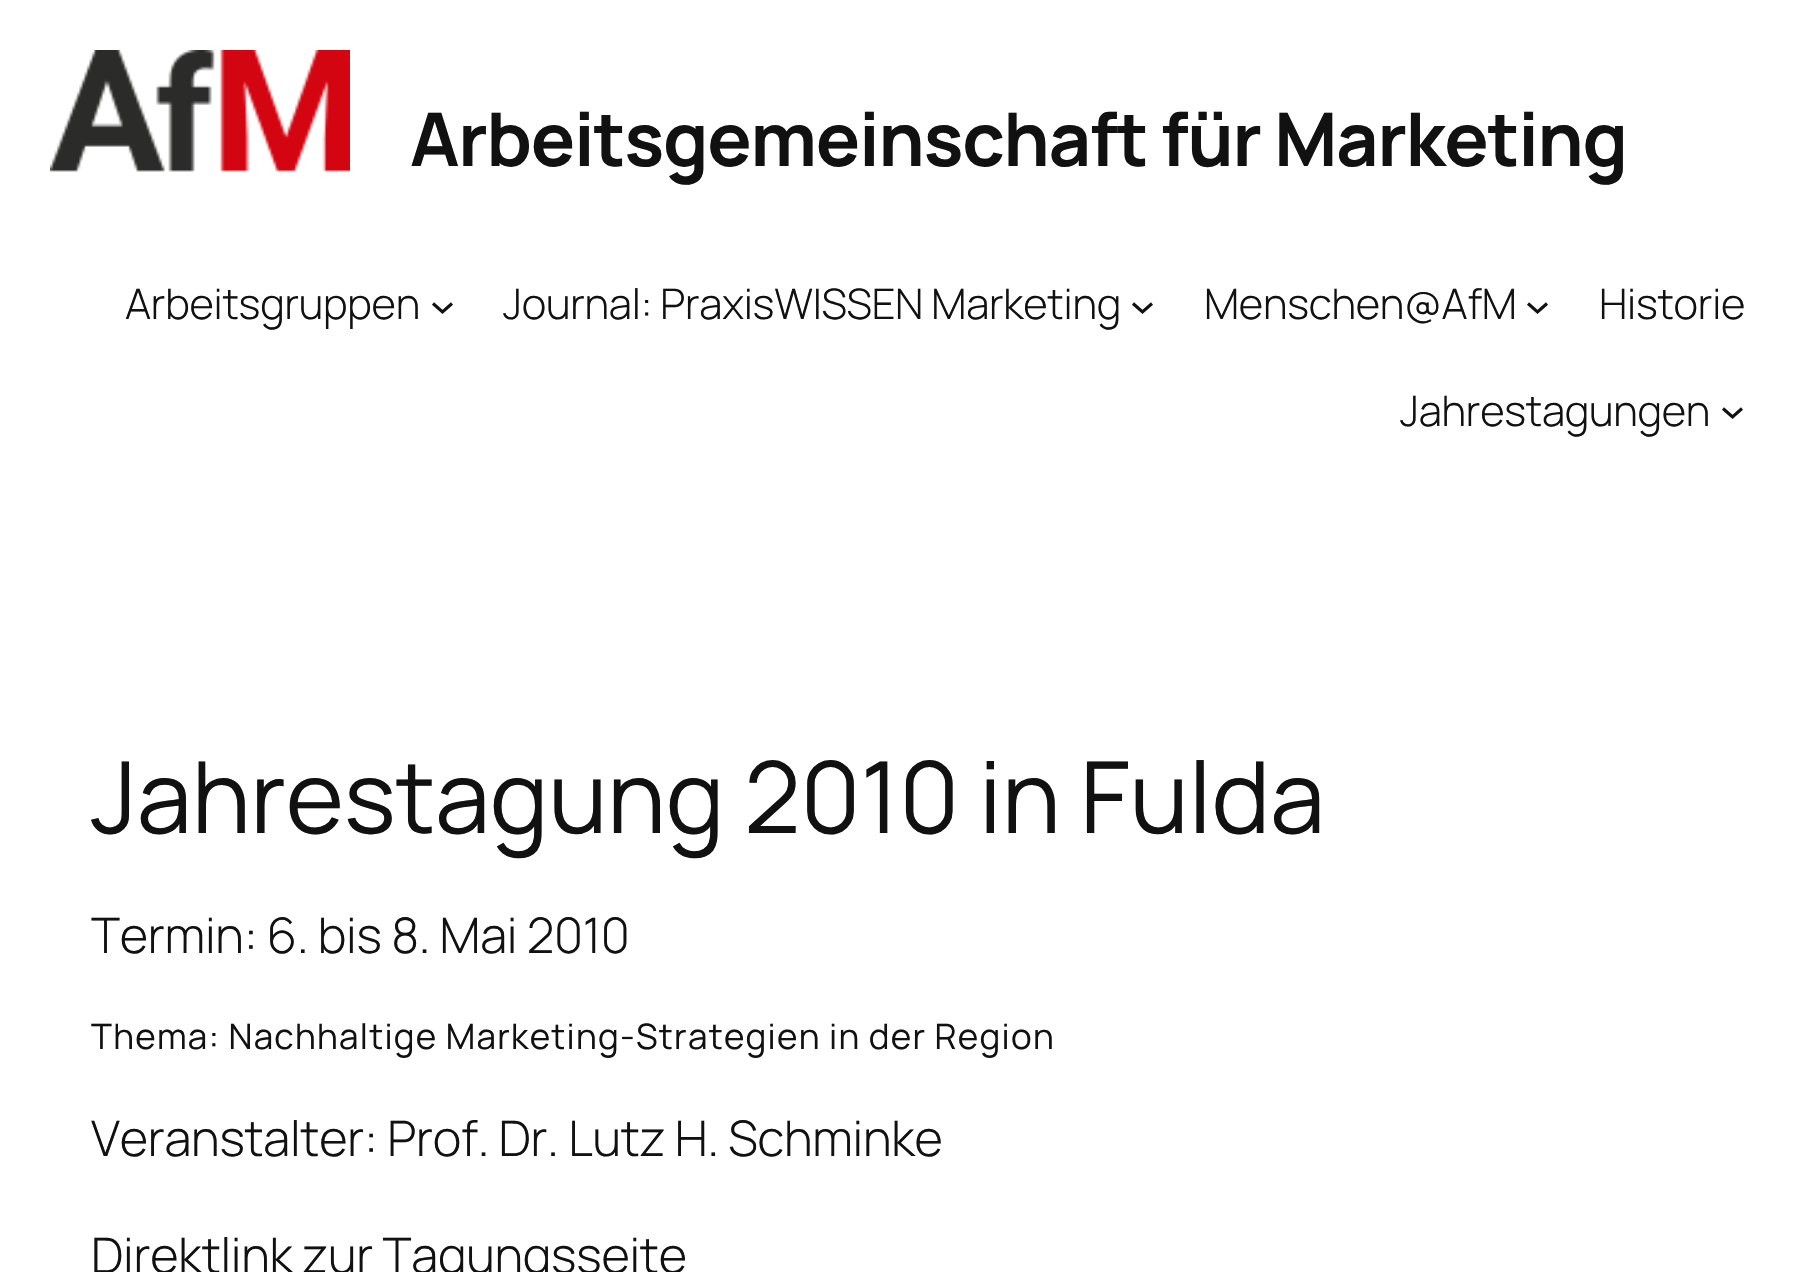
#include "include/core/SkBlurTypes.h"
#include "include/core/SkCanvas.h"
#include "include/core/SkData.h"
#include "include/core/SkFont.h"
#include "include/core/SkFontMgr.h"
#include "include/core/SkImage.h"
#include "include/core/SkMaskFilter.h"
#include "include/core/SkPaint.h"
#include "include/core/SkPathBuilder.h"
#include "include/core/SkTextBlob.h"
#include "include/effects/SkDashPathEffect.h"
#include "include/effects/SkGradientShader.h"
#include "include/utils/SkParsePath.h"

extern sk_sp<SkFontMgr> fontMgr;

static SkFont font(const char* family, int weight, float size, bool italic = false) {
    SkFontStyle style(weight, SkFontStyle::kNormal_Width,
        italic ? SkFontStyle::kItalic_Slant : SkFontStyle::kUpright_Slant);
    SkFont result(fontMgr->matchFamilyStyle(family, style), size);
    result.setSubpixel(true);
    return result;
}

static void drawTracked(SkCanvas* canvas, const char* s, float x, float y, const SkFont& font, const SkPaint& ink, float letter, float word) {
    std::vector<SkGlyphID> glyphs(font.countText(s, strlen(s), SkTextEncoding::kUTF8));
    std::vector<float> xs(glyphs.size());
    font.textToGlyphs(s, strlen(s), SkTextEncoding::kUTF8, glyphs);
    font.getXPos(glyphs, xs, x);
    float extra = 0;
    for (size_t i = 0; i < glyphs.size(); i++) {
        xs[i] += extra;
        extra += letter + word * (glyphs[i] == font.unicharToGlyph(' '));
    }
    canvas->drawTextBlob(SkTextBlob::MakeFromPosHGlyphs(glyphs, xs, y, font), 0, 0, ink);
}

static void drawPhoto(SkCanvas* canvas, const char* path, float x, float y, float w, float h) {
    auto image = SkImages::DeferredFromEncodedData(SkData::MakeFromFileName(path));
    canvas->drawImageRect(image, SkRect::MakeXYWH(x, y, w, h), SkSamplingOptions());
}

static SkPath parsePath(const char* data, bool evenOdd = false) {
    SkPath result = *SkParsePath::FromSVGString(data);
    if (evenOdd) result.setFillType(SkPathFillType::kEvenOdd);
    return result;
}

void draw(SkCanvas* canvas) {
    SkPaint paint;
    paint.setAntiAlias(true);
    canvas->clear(0xFFFFFFFF);
    drawPhoto(canvas, "assets/img1.png", 50, 50, 300, 122);
    SkFont font1 = font("Manrope", 700, 73.9f);
    paint.setColor(0xFF111111);
    drawTracked(canvas, "Arbeitsgemeinschaft für Marketing", 410, 166, font1, paint, -1.25f, 0);
    SkFont font2 = font("Manrope", 300, 42);
    drawTracked(canvas, "Arbeitsgruppen", 125, 319, font2, paint, -0.25f, 0);
    paint.setStroke(true);
    paint.setStrokeWidth(3.1f);
    canvas->drawPath(parsePath("M433 303.5L442.5 312L452 303.5"), paint);
    paint.setStroke(false);
    drawTracked(canvas, "Journal: PraxisWISSEN Marketing", 503, 319, font2, paint, -0.25f, 0);
    paint.setStroke(true);
    canvas->drawPath(parsePath("M1133 303.5L1142.5 312L1152 303.5"), paint);
    paint.setStroke(false);
    drawTracked(canvas, "Menschen@AfM", 1204, 319, font2, paint, -0.25f, 0);
    paint.setStroke(true);
    canvas->drawPath(parsePath("M1528 303.5L1537.5 312L1547 303.5"), paint);
    paint.setStroke(false);
    drawTracked(canvas, "Historie", 1599, 319, font2, paint, -0.25f, 0);
    drawTracked(canvas, "Jahrestagungen", 1400, 426, font2, paint, -0.25f, 0);
    paint.setStroke(true);
    canvas->drawPath(parsePath("M1723 408.5L1732.5 417L1742 408.5"), paint);
    SkFont font3 = font("Manrope", 400, 99.25f);
    paint.setStroke(false);
    drawTracked(canvas, "Jahrestagung 2010 in Fulda", 91, 833, font3, paint, -0.25f, 0);
    SkFont font4 = font("Manrope", 300, 48.9f);
    drawTracked(canvas, "Termin: 6. bis 8. Mai 2010", 91, 953, font4, paint, -0.25f, 0);
    SkFont font5 = font("Manrope", 400, 35);
    drawTracked(canvas, "Thema: Nachhaltige Marketing-Strategien in der Region", 91, 1049, font5, paint, 1.25f, 0);
    drawTracked(canvas, "Veranstalter: Prof. Dr. Lutz H. Schminke", 91, 1156, font4, paint, -0.25f, 0);
    drawTracked(canvas, "Direktlink zur Tagungsseite", 91, 1273, font4, paint, -0.25f, 0);
}
